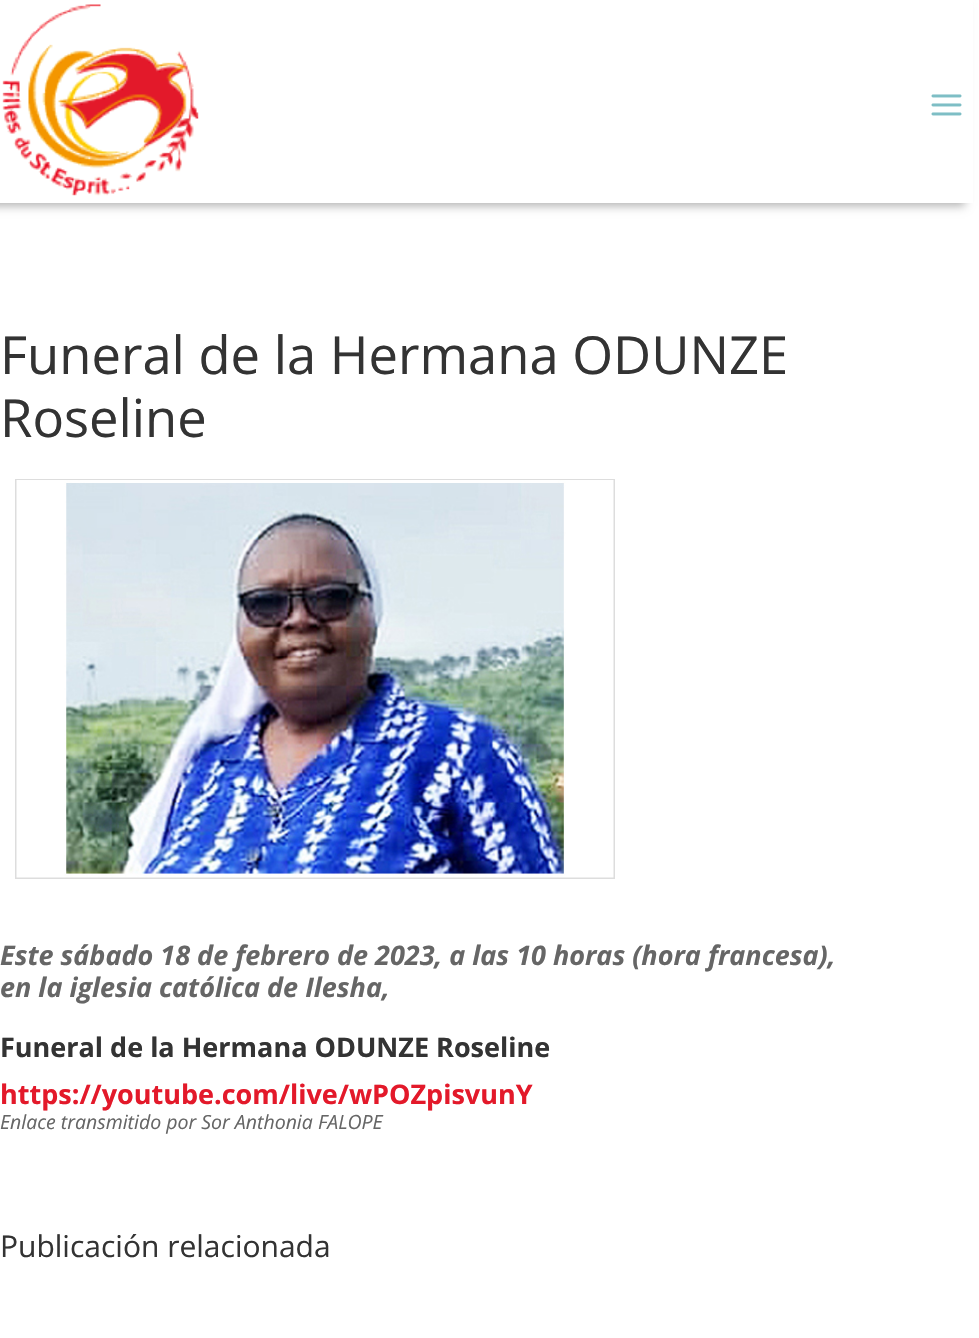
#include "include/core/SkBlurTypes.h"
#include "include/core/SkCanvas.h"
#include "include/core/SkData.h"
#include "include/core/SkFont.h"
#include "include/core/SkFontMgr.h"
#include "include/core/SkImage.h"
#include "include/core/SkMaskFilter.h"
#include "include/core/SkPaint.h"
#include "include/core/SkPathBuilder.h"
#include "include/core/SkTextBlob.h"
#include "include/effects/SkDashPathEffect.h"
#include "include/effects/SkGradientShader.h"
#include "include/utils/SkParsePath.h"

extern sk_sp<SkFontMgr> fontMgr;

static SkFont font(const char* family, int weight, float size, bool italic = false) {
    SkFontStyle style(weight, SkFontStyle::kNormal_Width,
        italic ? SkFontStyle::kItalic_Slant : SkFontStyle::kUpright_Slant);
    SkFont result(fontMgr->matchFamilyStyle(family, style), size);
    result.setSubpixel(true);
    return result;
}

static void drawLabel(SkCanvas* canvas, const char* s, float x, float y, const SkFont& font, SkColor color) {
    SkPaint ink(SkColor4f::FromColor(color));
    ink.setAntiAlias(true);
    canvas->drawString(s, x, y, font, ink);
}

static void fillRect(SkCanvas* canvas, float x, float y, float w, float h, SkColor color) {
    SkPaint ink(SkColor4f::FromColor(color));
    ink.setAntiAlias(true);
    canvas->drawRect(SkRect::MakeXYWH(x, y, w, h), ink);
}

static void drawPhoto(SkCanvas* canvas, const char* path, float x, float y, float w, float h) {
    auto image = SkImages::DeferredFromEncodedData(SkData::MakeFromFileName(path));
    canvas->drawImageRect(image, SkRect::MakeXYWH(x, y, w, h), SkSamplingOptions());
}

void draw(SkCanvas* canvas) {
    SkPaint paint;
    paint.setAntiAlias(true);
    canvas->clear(0xFFFFFFFF);
    paint.setColor(0x4D000000);
    paint.setMaskFilter(SkMaskFilter::MakeBlur(kNormal_SkBlurStyle, 4.5f));
    canvas->drawRect(SkRect::MakeXYWH(-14, 3, 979, 203), paint);
    paint.setMaskFilter(nullptr);
    fillRect(canvas, 0, 0, 973, 203, 0xFFFFFFFF);
    drawPhoto(canvas, "assets/img1.png", 2, 4, 197, 192);
    drawPhoto(canvas, "assets/img2.png", 931, 94, 31, 22);
    SkFont font1 = font("Open Sans", 400, 52.5f);
    drawLabel(canvas, "Funeral de la Hermana ODUNZE", 0, 374, font1, 0xFF333333);
    drawLabel(canvas, "Roseline", 0, 437, font1, 0xFF333333);
    paint.setStroke(true);
    paint.setStrokeWidth(2);
    paint.setColor(0xFFDDDDDD);
    canvas->drawRect(SkRect::MakeXYWH(16, 480, 598, 398), paint);
    drawPhoto(canvas, "assets/img3.png", 16, 480, 598, 398);
    SkFont font2 = font("Open Sans", 700, 27, true);
    drawLabel(canvas, "Este sábado 18 de febrero de 2023, a las 10 horas (hora francesa),", 0, 965, font2, 0xFF666666);
    drawLabel(canvas, "en la iglesia católica de Ilesha,", 0, 997, font2, 0xFF666666);
    SkFont font3 = font("Open Sans", 700, 27);
    drawLabel(canvas, "Funeral de la Hermana ODUNZE Roseline", 0, 1057, font3, 0xFF333333);
    drawLabel(canvas, "https://youtube.com/live/wPOZpisvunY", 0, 1104, font3, 0xFFE3192A);
    SkFont font4 = font("Open Sans", 400, 19.5f, true);
    drawLabel(canvas, "Enlace transmitido por Sor Anthonia FALOPE", 0, 1129, font4, 0xFF666666);
    SkFont font5 = font("Open Sans", 400, 30);
    drawLabel(canvas, "Publicación relacionada", 0, 1257, font5, 0xFF333333);
}
